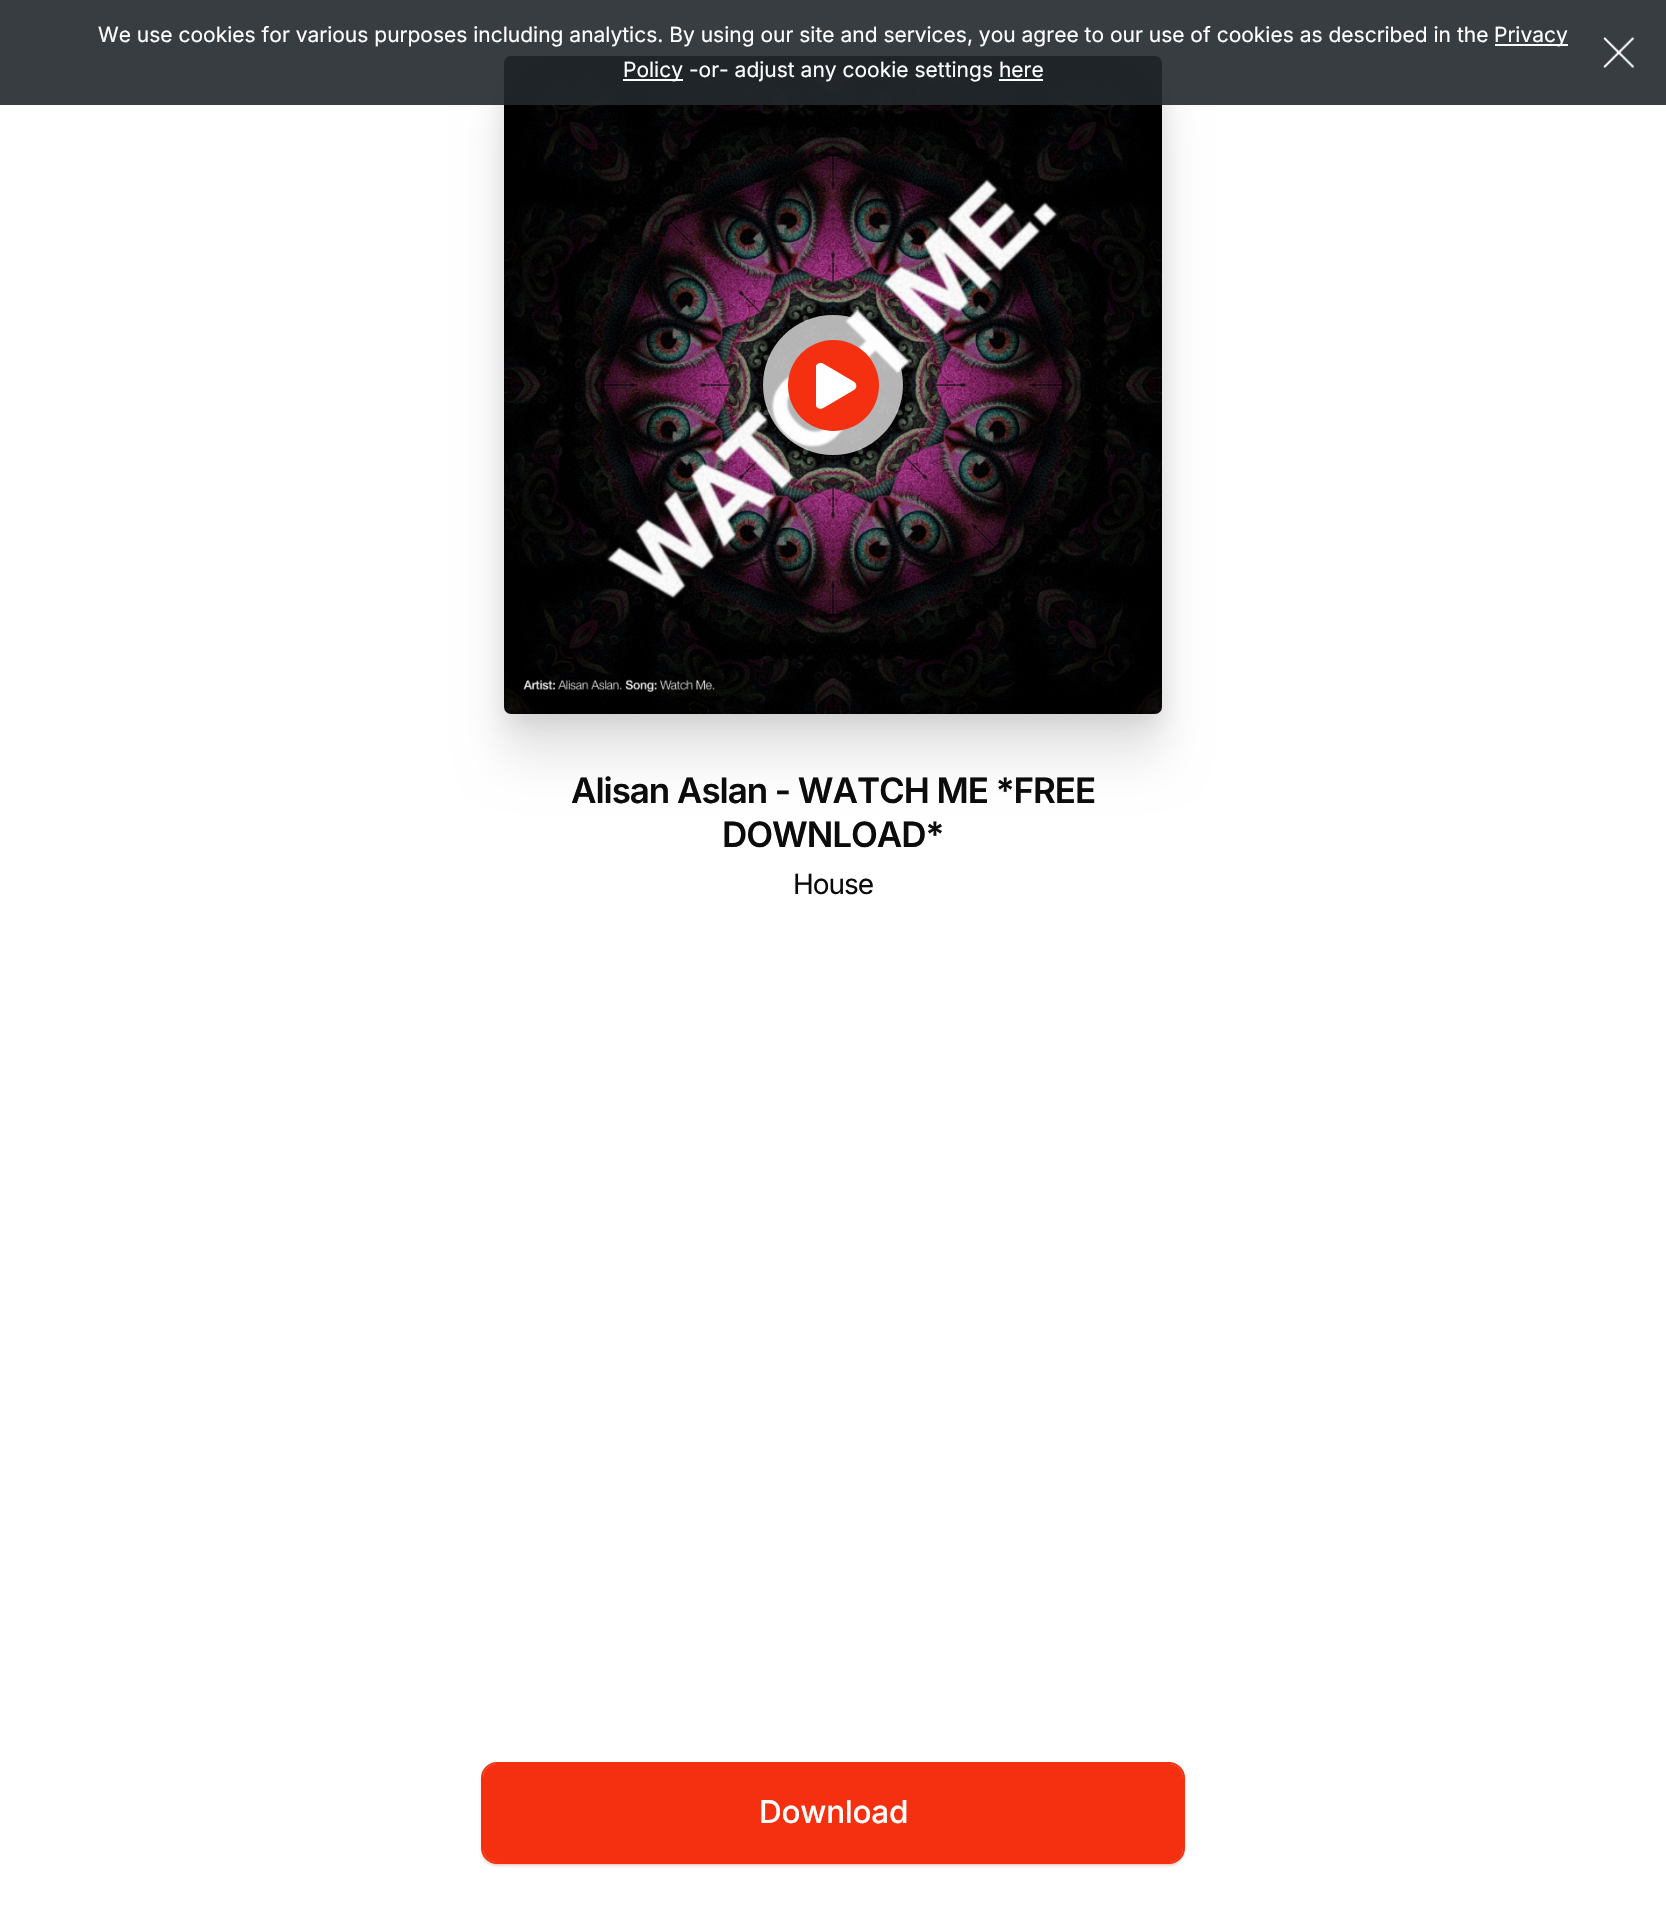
#include "include/core/SkBlurTypes.h"
#include "include/core/SkCanvas.h"
#include "include/core/SkData.h"
#include "include/core/SkFont.h"
#include "include/core/SkFontMgr.h"
#include "include/core/SkImage.h"
#include "include/core/SkMaskFilter.h"
#include "include/core/SkPaint.h"
#include "include/core/SkPathBuilder.h"
#include "include/core/SkTextBlob.h"
#include "include/effects/SkDashPathEffect.h"
#include "include/effects/SkGradientShader.h"
#include "include/utils/SkParsePath.h"

extern sk_sp<SkFontMgr> fontMgr;

static SkFont font(const char* family, int weight, float size, bool italic = false) {
    SkFontStyle style(weight, SkFontStyle::kNormal_Width,
        italic ? SkFontStyle::kItalic_Slant : SkFontStyle::kUpright_Slant);
    SkFont result(fontMgr->matchFamilyStyle(family, style), size);
    result.setSubpixel(true);
    return result;
}

static void drawLabel(SkCanvas* canvas, const char* s, float x, float y, const SkFont& font, SkColor color) {
    SkPaint ink(SkColor4f::FromColor(color));
    ink.setAntiAlias(true);
    canvas->drawString(s, x, y, font, ink);
}

static void drawTracked(SkCanvas* canvas, const char* s, float x, float y, const SkFont& font, const SkPaint& ink, float letter, float word) {
    std::vector<SkGlyphID> glyphs(font.countText(s, strlen(s), SkTextEncoding::kUTF8));
    std::vector<float> xs(glyphs.size());
    font.textToGlyphs(s, strlen(s), SkTextEncoding::kUTF8, glyphs);
    font.getXPos(glyphs, xs, x);
    float extra = 0;
    for (size_t i = 0; i < glyphs.size(); i++) {
        xs[i] += extra;
        extra += letter + word * (glyphs[i] == font.unicharToGlyph(' '));
    }
    canvas->drawTextBlob(SkTextBlob::MakeFromPosHGlyphs(glyphs, xs, y, font), 0, 0, ink);
}

static void fillRect(SkCanvas* canvas, float x, float y, float w, float h, SkColor color) {
    SkPaint ink(SkColor4f::FromColor(color));
    ink.setAntiAlias(true);
    canvas->drawRect(SkRect::MakeXYWH(x, y, w, h), ink);
}

static void drawPhoto(SkCanvas* canvas, const char* path, float x, float y, float w, float h) {
    auto image = SkImages::DeferredFromEncodedData(SkData::MakeFromFileName(path));
    canvas->drawImageRect(image, SkRect::MakeXYWH(x, y, w, h), SkSamplingOptions());
}

void draw(SkCanvas* canvas) {
    SkPaint paint;
    paint.setAntiAlias(true);
    canvas->clear(0xFFFFFFFF);
    paint.setColor(0x1A000000);
    paint.setMaskFilter(SkMaskFilter::MakeBlur(kNormal_SkBlurStyle, 12));
    canvas->drawRoundRect(SkRect::MakeXYWH(504, 67, 658, 658), 7, 7, paint);
    paint.setMaskFilter(nullptr);
    paint.setColor(0x17000000);
    paint.setMaskFilter(SkMaskFilter::MakeBlur(kNormal_SkBlurStyle, 23));
    canvas->drawRoundRect(SkRect::MakeXYWH(504, 102, 658, 658), 7, 7, paint);
    paint.setMaskFilter(nullptr);
    drawPhoto(canvas, "assets/img2.png", 504, 56, 658, 658);
    fillRect(canvas, 0, 0, 1666, 105, 0xE622282E);
    SkFont font1 = font("Inter", 400, 21);
    drawLabel(canvas, "We use cookies for various purposes including analytics. By using our site and services, you agree to our use of cookies as described in the", 98, 42, font1, 0xFFFFFFFF);
    fillRect(canvas, 1495, 44, 73, 2, 0xFFFFFFFF);
    drawLabel(canvas, "Privacy", 1494, 42, font1, 0xFFFFFFFF);
    fillRect(canvas, 623, 79, 60, 2, 0xFFFFFFFF);
    drawLabel(canvas, "Policy -or- adjust any cookie settings here", 623, 77, font1, 0xFFFFFFFF);
    fillRect(canvas, 999, 79, 44, 2, 0xFFFFFFFF);
    drawPhoto(canvas, "assets/img1.png", 1603, 36, 32, 33);
    paint.setColor(0xB3FFFFFF);
    canvas->drawCircle(833, 385, 70, paint);
    paint.setColor(0xFFF43010);
    canvas->drawCircle(833.5f, 385.5f, 45.5f, paint);
    drawPhoto(canvas, "assets/img3.png", 816, 362, 41, 47);
    SkFont font2 = font("Inter", 600, 35);
    paint.setColor(0xFF0D0C0C);
    drawTracked(canvas, "Alisan Aslan - WATCH ME *FREE", 571, 803, font2, paint, -1.05f, 0);
    drawTracked(canvas, "DOWNLOAD*", 722, 847, font2, paint, -1.05f, 0);
    SkFont font3 = font("Inter", 400, 28);
    drawTracked(canvas, "House", 793, 894, font3, paint, -1.05f, 0);
    paint.setColor(0x80A8210B);
    paint.setMaskFilter(SkMaskFilter::MakeBlur(kNormal_SkBlurStyle, 2));
    canvas->drawRoundRect(SkRect::MakeXYWH(483, 1766, 700, 98), 14, 14, paint);
    paint.setMaskFilter(nullptr);
    paint.setStroke(true);
    paint.setStrokeWidth(2);
    paint.setColor(0xFFF43010);
    canvas->drawRoundRect(SkRect::MakeXYWH(482, 1763, 702, 100), 15, 15, paint);
    paint.setStroke(false);
    canvas->drawRoundRect(SkRect::MakeXYWH(484, 1765, 698, 96), 13, 13, paint);
    paint.setStroke(true);
    canvas->drawRoundRect(SkRect::MakeXYWH(484, 1765, 698, 96), 13, 13, paint);
    SkFont font4 = font("Inter", 500, 31.5f);
    paint.setStroke(false);
    paint.setColor(0xFFFFFFFF);
    drawTracked(canvas, "Download", 759, 1823, font4, paint, -0.25f, 0);
}
